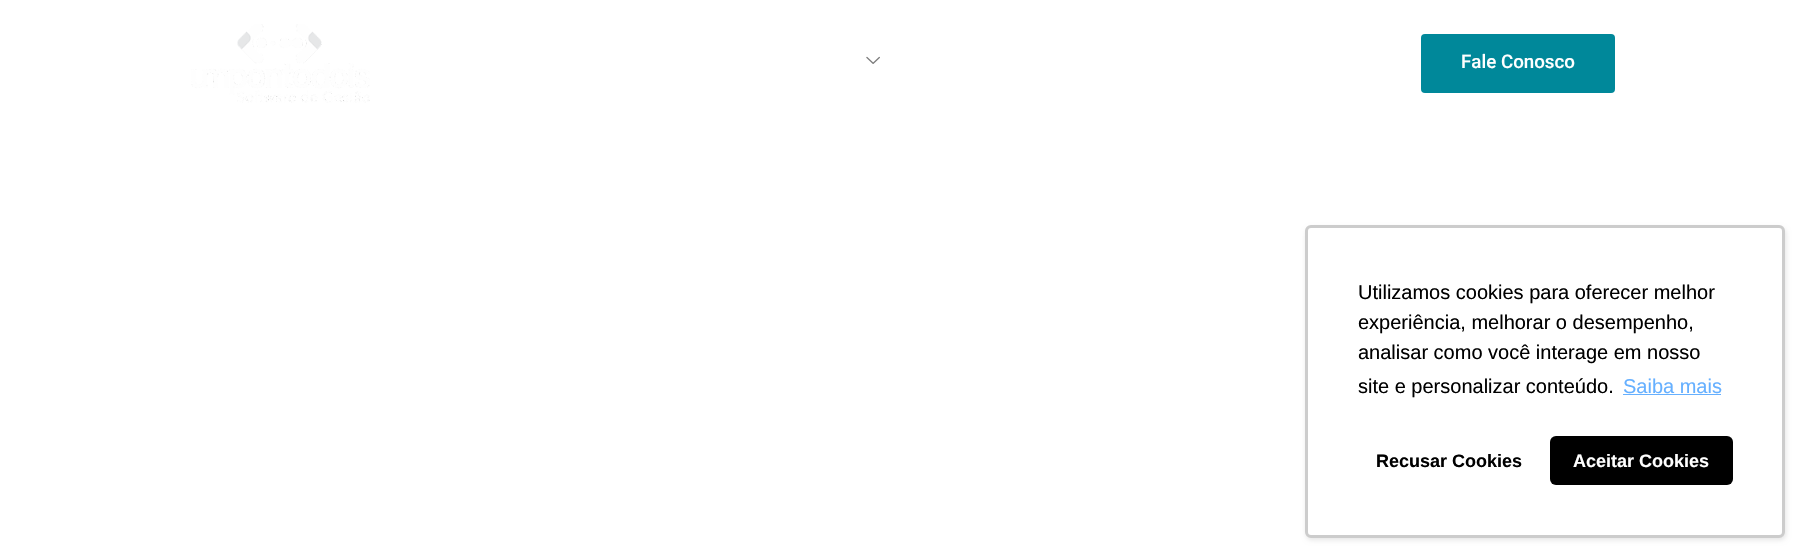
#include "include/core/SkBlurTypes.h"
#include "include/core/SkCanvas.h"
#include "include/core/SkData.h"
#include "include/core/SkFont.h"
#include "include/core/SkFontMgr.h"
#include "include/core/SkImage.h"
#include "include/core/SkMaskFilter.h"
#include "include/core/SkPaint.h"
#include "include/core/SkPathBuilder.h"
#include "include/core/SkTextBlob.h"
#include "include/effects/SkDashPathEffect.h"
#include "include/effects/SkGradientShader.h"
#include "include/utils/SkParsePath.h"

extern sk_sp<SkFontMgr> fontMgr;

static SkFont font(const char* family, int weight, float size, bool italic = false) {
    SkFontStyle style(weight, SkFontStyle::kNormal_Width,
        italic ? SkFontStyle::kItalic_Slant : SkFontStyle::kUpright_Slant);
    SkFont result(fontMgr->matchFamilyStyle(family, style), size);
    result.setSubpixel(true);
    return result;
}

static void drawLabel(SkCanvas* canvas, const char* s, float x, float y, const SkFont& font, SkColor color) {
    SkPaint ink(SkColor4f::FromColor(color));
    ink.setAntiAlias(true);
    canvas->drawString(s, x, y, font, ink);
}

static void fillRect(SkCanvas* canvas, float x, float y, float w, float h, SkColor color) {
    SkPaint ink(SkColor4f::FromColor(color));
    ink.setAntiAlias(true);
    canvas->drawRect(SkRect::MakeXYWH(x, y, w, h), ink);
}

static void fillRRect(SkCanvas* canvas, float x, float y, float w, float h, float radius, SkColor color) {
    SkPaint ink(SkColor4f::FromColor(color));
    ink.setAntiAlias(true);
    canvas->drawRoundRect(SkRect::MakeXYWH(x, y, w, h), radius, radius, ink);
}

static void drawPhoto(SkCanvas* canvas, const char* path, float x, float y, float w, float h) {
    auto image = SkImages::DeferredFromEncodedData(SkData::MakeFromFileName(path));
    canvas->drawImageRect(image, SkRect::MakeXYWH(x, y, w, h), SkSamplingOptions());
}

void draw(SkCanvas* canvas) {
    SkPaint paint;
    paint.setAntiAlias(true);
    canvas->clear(0xFFFFFFFF);
    drawPhoto(canvas, "assets/img1.png", 191, 24, 179, 79);
    drawPhoto(canvas, "assets/img2.png", 866, 56, 14, 8);
    fillRRect(canvas, 1421, 34, 194, 59, 4, 0xFF00889A);
    SkFont font1 = font("Roboto", 500, 18.75f);
    drawLabel(canvas, "Fale Conosco", 1461, 68, font1, 0xFFFFFFFF);
    paint.setColor(0x1A000000);
    paint.setMaskFilter(SkMaskFilter::MakeBlur(kNormal_SkBlurStyle, 2.5f));
    canvas->drawRoundRect(SkRect::MakeXYWH(1306, 228, 480, 312), 6, 6, paint);
    paint.setMaskFilter(nullptr);
    fillRRect(canvas, 1305, 225, 480, 313, 6, 0xFFFFFFFF);
    paint.setStroke(true);
    paint.setStrokeWidth(3);
    paint.setColor(0x33000000);
    canvas->drawRoundRect(SkRect::MakeXYWH(1306.5f, 226.5f, 477, 310), 4.5f, 4.5f, paint);
    SkFont font2 = font("Liberation Sans", 400, 20);
    drawLabel(canvas, "Utilizamos cookies para oferecer melhor", 1358, 299, font2, 0xFF000000);
    drawLabel(canvas, "experiência, melhorar o desempenho,", 1358, 329, font2, 0xFF000000);
    drawLabel(canvas, "analisar como você interage em nosso", 1358, 359, font2, 0xFF000000);
    drawLabel(canvas, "site e personalizar conteúdo.", 1358, 393, font2, 0xFF000000);
    drawLabel(canvas, "Saiba mais", 1623, 393, font2, 0xFF66B0FF);
    fillRect(canvas, 1623, 394, 98, 1, 0xFF66B0FF);
    SkFont font3 = font("Liberation Sans", 700, 18);
    drawLabel(canvas, "Recusar Cookies", 1376, 467, font3, 0xFF000000);
    fillRRect(canvas, 1550, 436, 183, 49, 6, 0xFF000000);
    drawLabel(canvas, "Aceitar Cookies", 1573, 467, font3, 0xFFFFFFFF);
}
